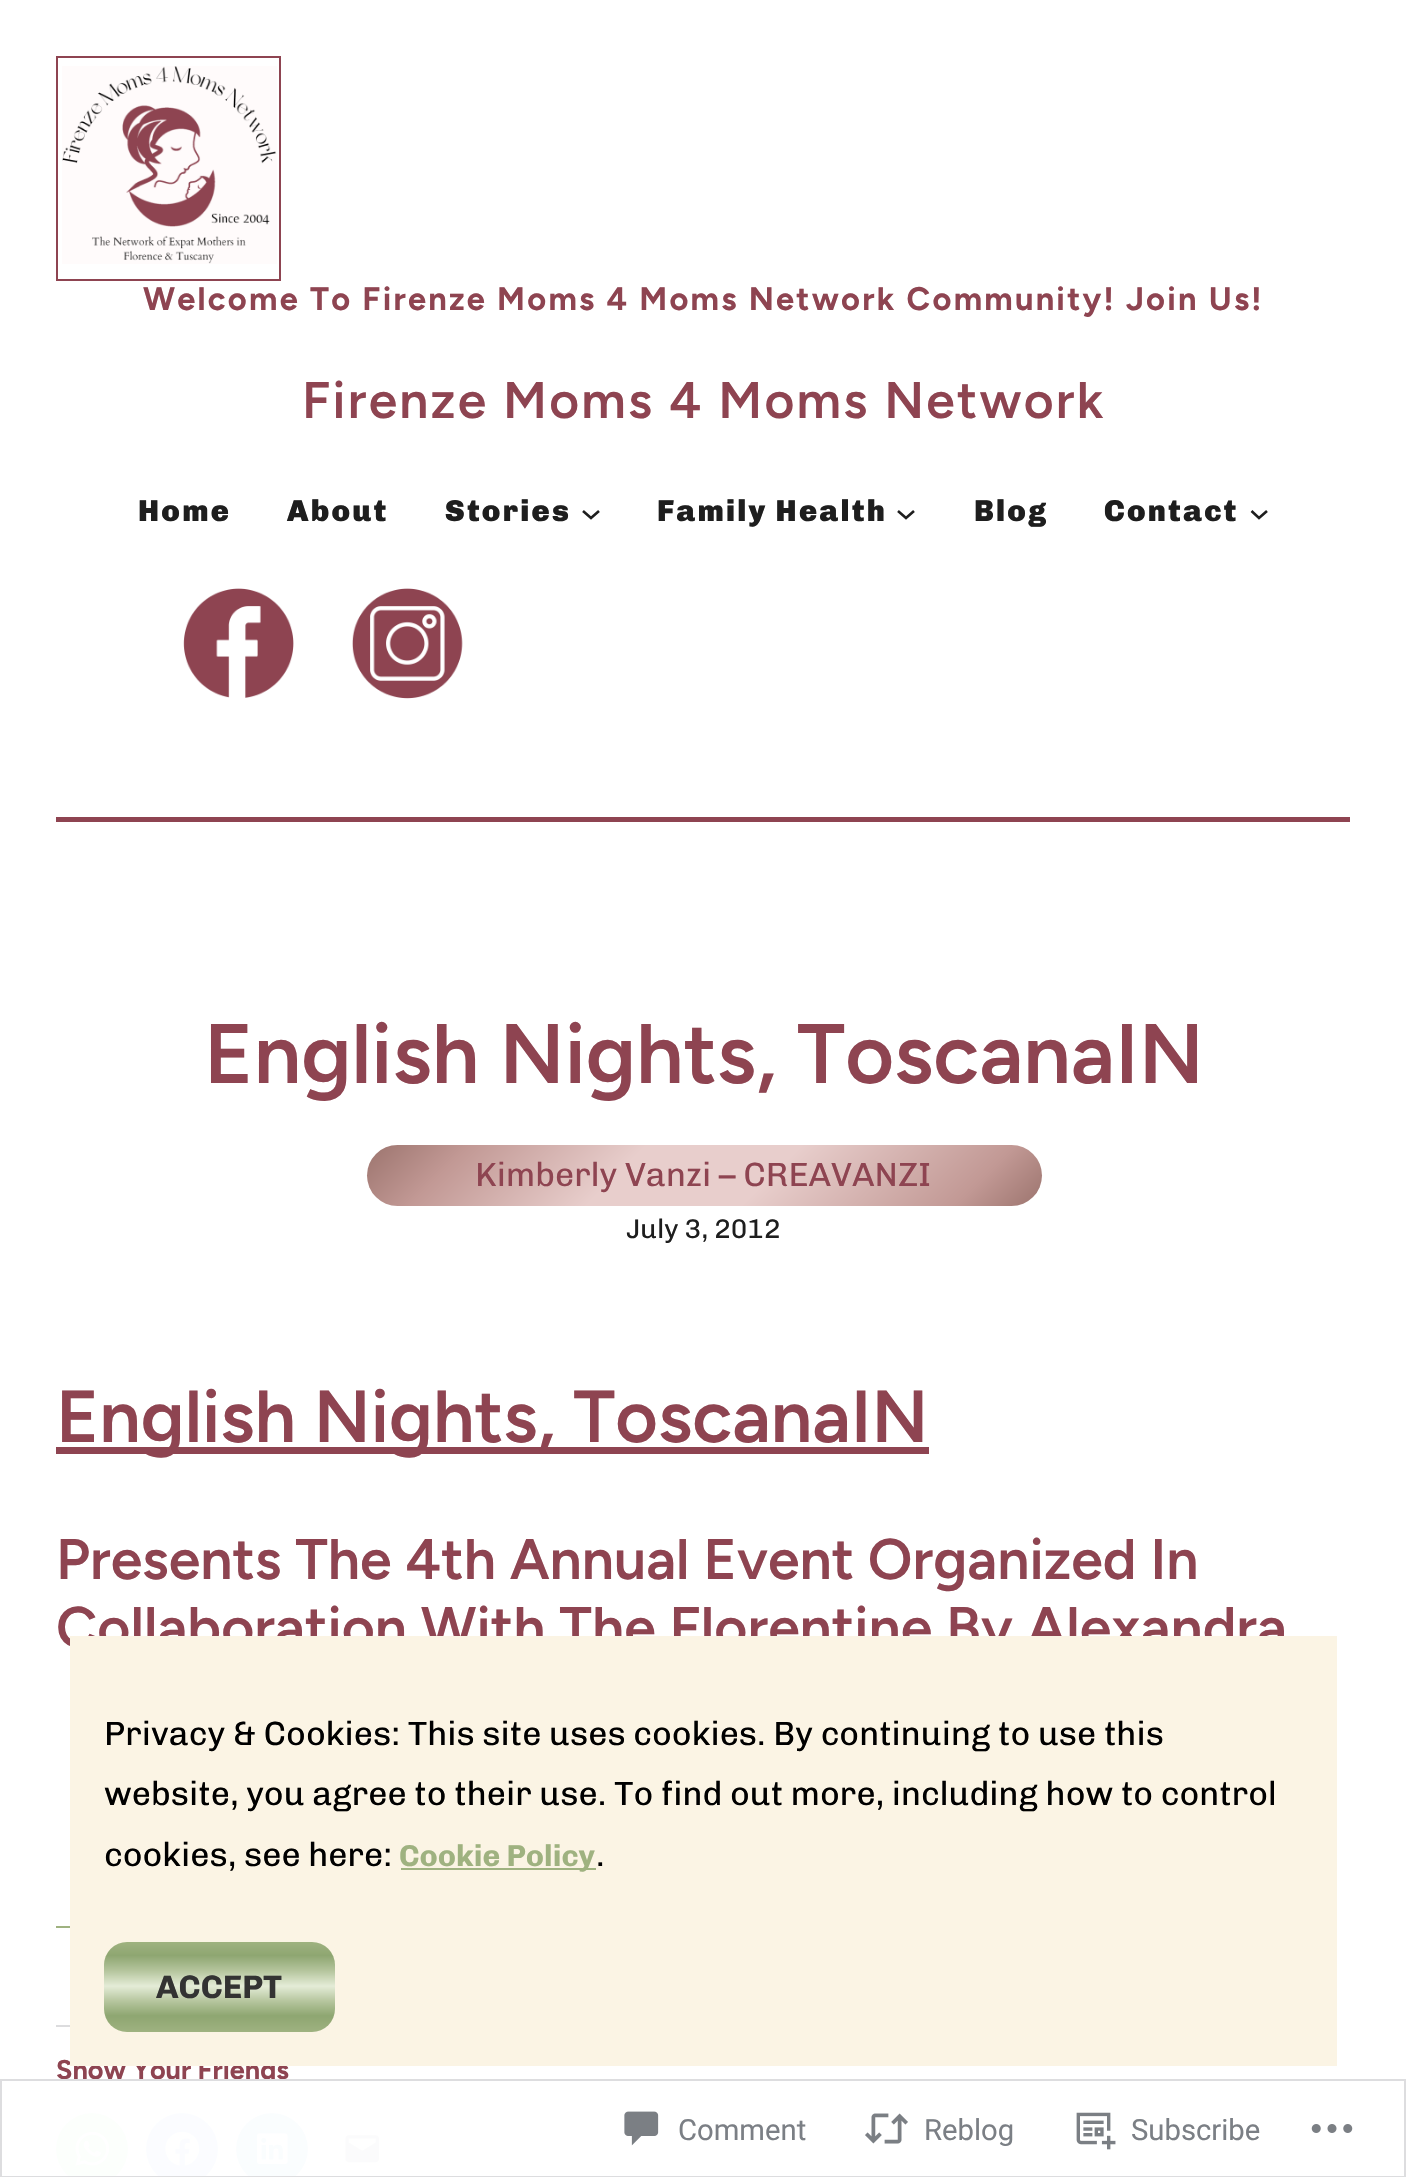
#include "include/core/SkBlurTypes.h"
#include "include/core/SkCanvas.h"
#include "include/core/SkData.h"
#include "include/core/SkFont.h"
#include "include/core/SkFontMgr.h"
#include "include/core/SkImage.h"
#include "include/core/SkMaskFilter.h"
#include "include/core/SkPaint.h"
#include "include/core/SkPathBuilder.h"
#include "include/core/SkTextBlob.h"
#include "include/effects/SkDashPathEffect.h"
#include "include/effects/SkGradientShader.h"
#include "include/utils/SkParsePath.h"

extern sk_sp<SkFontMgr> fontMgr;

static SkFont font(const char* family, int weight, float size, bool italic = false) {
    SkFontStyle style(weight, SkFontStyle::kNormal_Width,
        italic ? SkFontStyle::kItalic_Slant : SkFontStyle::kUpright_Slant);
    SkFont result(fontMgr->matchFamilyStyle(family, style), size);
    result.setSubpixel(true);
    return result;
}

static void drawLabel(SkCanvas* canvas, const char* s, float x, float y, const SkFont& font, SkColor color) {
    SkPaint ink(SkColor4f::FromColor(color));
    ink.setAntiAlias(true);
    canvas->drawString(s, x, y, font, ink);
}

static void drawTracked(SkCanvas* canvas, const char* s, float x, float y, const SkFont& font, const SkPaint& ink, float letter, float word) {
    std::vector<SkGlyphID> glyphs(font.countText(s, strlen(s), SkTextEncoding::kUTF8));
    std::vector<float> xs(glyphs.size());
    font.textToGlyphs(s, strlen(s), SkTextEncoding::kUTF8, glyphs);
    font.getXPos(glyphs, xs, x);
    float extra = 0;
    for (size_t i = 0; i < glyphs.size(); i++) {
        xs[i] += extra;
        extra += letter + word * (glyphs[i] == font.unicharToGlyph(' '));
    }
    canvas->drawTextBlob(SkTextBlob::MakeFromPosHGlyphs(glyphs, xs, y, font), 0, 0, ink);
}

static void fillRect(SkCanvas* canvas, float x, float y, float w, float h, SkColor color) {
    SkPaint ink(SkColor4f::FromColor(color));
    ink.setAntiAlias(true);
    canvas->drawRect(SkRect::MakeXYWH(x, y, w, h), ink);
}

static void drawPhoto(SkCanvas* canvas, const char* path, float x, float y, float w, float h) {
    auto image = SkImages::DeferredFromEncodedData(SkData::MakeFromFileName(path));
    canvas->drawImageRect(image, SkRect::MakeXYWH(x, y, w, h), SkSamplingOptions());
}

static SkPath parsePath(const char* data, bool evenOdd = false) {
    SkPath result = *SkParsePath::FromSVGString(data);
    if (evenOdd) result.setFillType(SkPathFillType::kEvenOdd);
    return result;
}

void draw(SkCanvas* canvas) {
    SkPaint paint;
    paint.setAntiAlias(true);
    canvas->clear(0xFFFFFFFF);
    paint.setStroke(true);
    paint.setStrokeWidth(2);
    paint.setColor(0xFF8E4451);
    canvas->drawRect(SkRect::MakeXYWH(57, 57, 223, 223), paint);
    drawPhoto(canvas, "assets/img1.png", 62, 66, 215, 198);
    SkFont font1 = font("Figtree", 700, 32.55f);
    paint.setStroke(false);
    drawTracked(canvas, "Welcome To Firenze Moms 4 Moms Network Community! Join Us!", 143, 310, font1, paint, 2.25f, 0);
    SkFont font2 = font("Figtree", 600, 51.5f);
    drawTracked(canvas, "Firenze Moms 4 Moms Network", 302, 418, font2, paint, 2.25f, 0);
    SkFont font3 = font("Chivo", 900, 30.25f);
    paint.setColor(0xFF1E1E1E);
    drawTracked(canvas, "Home", 138, 521, font3, paint, 2.25f, 0);
    drawTracked(canvas, "About", 287, 521, font3, paint, 2.25f, 0);
    drawTracked(canvas, "Stories", 445, 521, font3, paint, 2.25f, 0);
    paint.setStroke(true);
    paint.setStrokeWidth(2.6f);
    canvas->drawPath(parsePath("M583 511L591 518L599 511"), paint);
    paint.setStroke(false);
    drawTracked(canvas, "Family Health", 657, 521, font3, paint, 2.25f, 0);
    paint.setStroke(true);
    canvas->drawPath(parsePath("M898 511L906 518L914 511"), paint);
    paint.setStroke(false);
    drawTracked(canvas, "Blog", 974, 521, font3, paint, 2.25f, 0);
    drawTracked(canvas, "Contact", 1104, 521, font3, paint, 2.25f, 0);
    paint.setStroke(true);
    canvas->drawPath(parsePath("M1251.5 511L1259 518L1267 511"), paint);
    drawPhoto(canvas, "assets/img2.png", 183, 588, 111, 110);
    drawPhoto(canvas, "assets/img3.png", 352, 588, 111, 111);
    fillRect(canvas, 56, 817, 1294, 5, 0xFF8E4451);
    SkFont font4 = font("Figtree", 600, 84.25f);
    drawLabel(canvas, "English Nights, ToscanaIN", 204, 1083, font4, 0xFF8E4451);
    paint.setStroke(false);
    {
        const SkColor colors[] = {0xFF9C746E, 0xFFC29995, 0xFFE8CECC, 0xFFE8CECC, 0xFFC29995, 0xFF9C746E};
        const float stops[] = {0, 0.14f, 0.38f, 0.59f, 0.88f, 1};
        const SkPoint ends[] = {{520, 992}, {888, 1360}};
        paint.setShader(SkGradientShader::MakeLinear(ends, colors, stops, 6, SkTileMode::kClamp));
        paint.setAlpha(255);
    }
    canvas->drawRoundRect(SkRect::MakeXYWH(367, 1145, 675, 61), 30.5f, 30.5f, paint);
    SkFont font5 = font("Chivo", 400, 33.65f);
    drawLabel(canvas, "Kimberly Vanzi – CREAVANZI", 475, 1186, font5, 0xFF8E4451);
    SkFont font6 = font("Chivo", 400, 27);
    drawLabel(canvas, "July 3, 2012", 626, 1238, font6, 0xFF1E1E1E);
    fillRect(canvas, 56, 1447, 873, 7, 0xFF8E4451);
    SkFont font7 = font("Figtree", 600, 73.5f);
    drawLabel(canvas, "English Nights, ToscanaIN", 56, 1442, font7, 0xFF8E4451);
    SkFont font8 = font("Figtree", 600, 57.1f);
    drawLabel(canvas, "Presents The 4th Annual Event Organized In", 56, 1579, font8, 0xFF8E4451);
    drawLabel(canvas, "Collaboration With The Florentine By Alexandra", 56, 1647, font8, 0xFF8E4451);
    fillRect(canvas, 56, 1926, 14, 2, 0xFF9FB280);
    fillRect(canvas, 56, 2025, 14, 2, 0xFFDCDCDE);
    SkFont font9 = font("Figtree", 700, 27);
    drawLabel(canvas, "Show Your Friends", 56, 2079, font9, 0xFF8E4451);
    paint.setShader(nullptr);
    paint.setColor(0xFF43D854);
    canvas->drawCircle(92, 2149, 36, paint);
    drawPhoto(canvas, "assets/img4.png", 75, 2131, 34, 35);
    paint.setColor(0xFF0866FF);
    canvas->drawCircle(182, 2149, 36, paint);
    drawPhoto(canvas, "assets/img5.png", 165, 2131, 35, 35);
    paint.setColor(0xFF0077B5);
    canvas->drawCircle(272, 2149, 36, paint);
    drawPhoto(canvas, "assets/img6.png", 257, 2133, 31, 31);
    paint.setColor(0xFFE9E9E9);
    canvas->drawCircle(362, 2149, 36, paint);
    drawPhoto(canvas, "assets/img7.png", 345, 2135, 35, 28);
    fillRect(canvas, 70, 1636, 1267, 430, 0xFFFBF4E4);
    drawLabel(canvas, "Privacy & Cookies: This site uses cookies. By continuing to use this", 104, 1745, font5, 0xFF000000);
    drawLabel(canvas, "website, you agree to their use. To find out more, including how to control", 104, 1805, font5, 0xFF000000);
    drawLabel(canvas, "cookies, see here:", 104, 1866, font5, 0xFF000000);
    fillRect(canvas, 401, 1868, 195, 2, 0xFF9FB280);
    SkFont font10 = font("Chivo", 700, 30.25f);
    drawLabel(canvas, "Cookie Policy", 399, 1866, font10, 0xFF9FB280);
    drawLabel(canvas, ".", 596, 1866, font5, 0xFF000000);
    {
        const SkColor colors[] = {0xFF9FB280, 0xFF8EA671, 0xFFB5C59D, 0xFFE4ECD7, 0xFFB5C59D, 0xFF8EA671, 0xFF9FB280};
        const float stops[] = {0, 0.15f, 0.32f, 0.49f, 0.66f, 0.82f, 1};
        const SkPoint ends[] = {{219, 1942}, {219, 2032}};
        paint.setShader(SkGradientShader::MakeLinear(ends, colors, stops, 7, SkTileMode::kClamp));
        paint.setAlpha(255);
    }
    canvas->drawRoundRect(SkRect::MakeXYWH(104, 1942, 231, 90), 23, 23, paint);
    SkFont font11 = font("Chivo", 700, 32.55f);
    drawLabel(canvas, "ACCEPT", 156, 1998, font11, 0xFF333333);
    fillRect(canvas, 56, 2079, 342, 98, 0xFAFFFFFF);
    paint.setStroke(true);
    paint.setStrokeWidth(2);
    paint.setShader(nullptr);
    paint.setColor(0xFADCDCDE);
    canvas->drawRect(SkRect::MakeXYWH(1, 2080, 1404, 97), paint);
    drawPhoto(canvas, "assets/img8.png", 624, 2111, 35, 35);
    SkFont font12 = font("Roboto", 400, 29.25f);
    drawLabel(canvas, "Comment", 678, 2140, font12, 0xFF7B7F85);
    drawPhoto(canvas, "assets/img9.png", 865, 2113, 43, 31);
    drawLabel(canvas, "Reblog", 924, 2140, font12, 0xFF7B7F85);
    drawPhoto(canvas, "assets/img10.png", 1076, 2112, 40, 38);
    drawLabel(canvas, "Subscribe", 1131, 2140, font12, 0xFF7B7F85);
    drawPhoto(canvas, "assets/img11.png", 1311, 2124, 42, 9);
}
